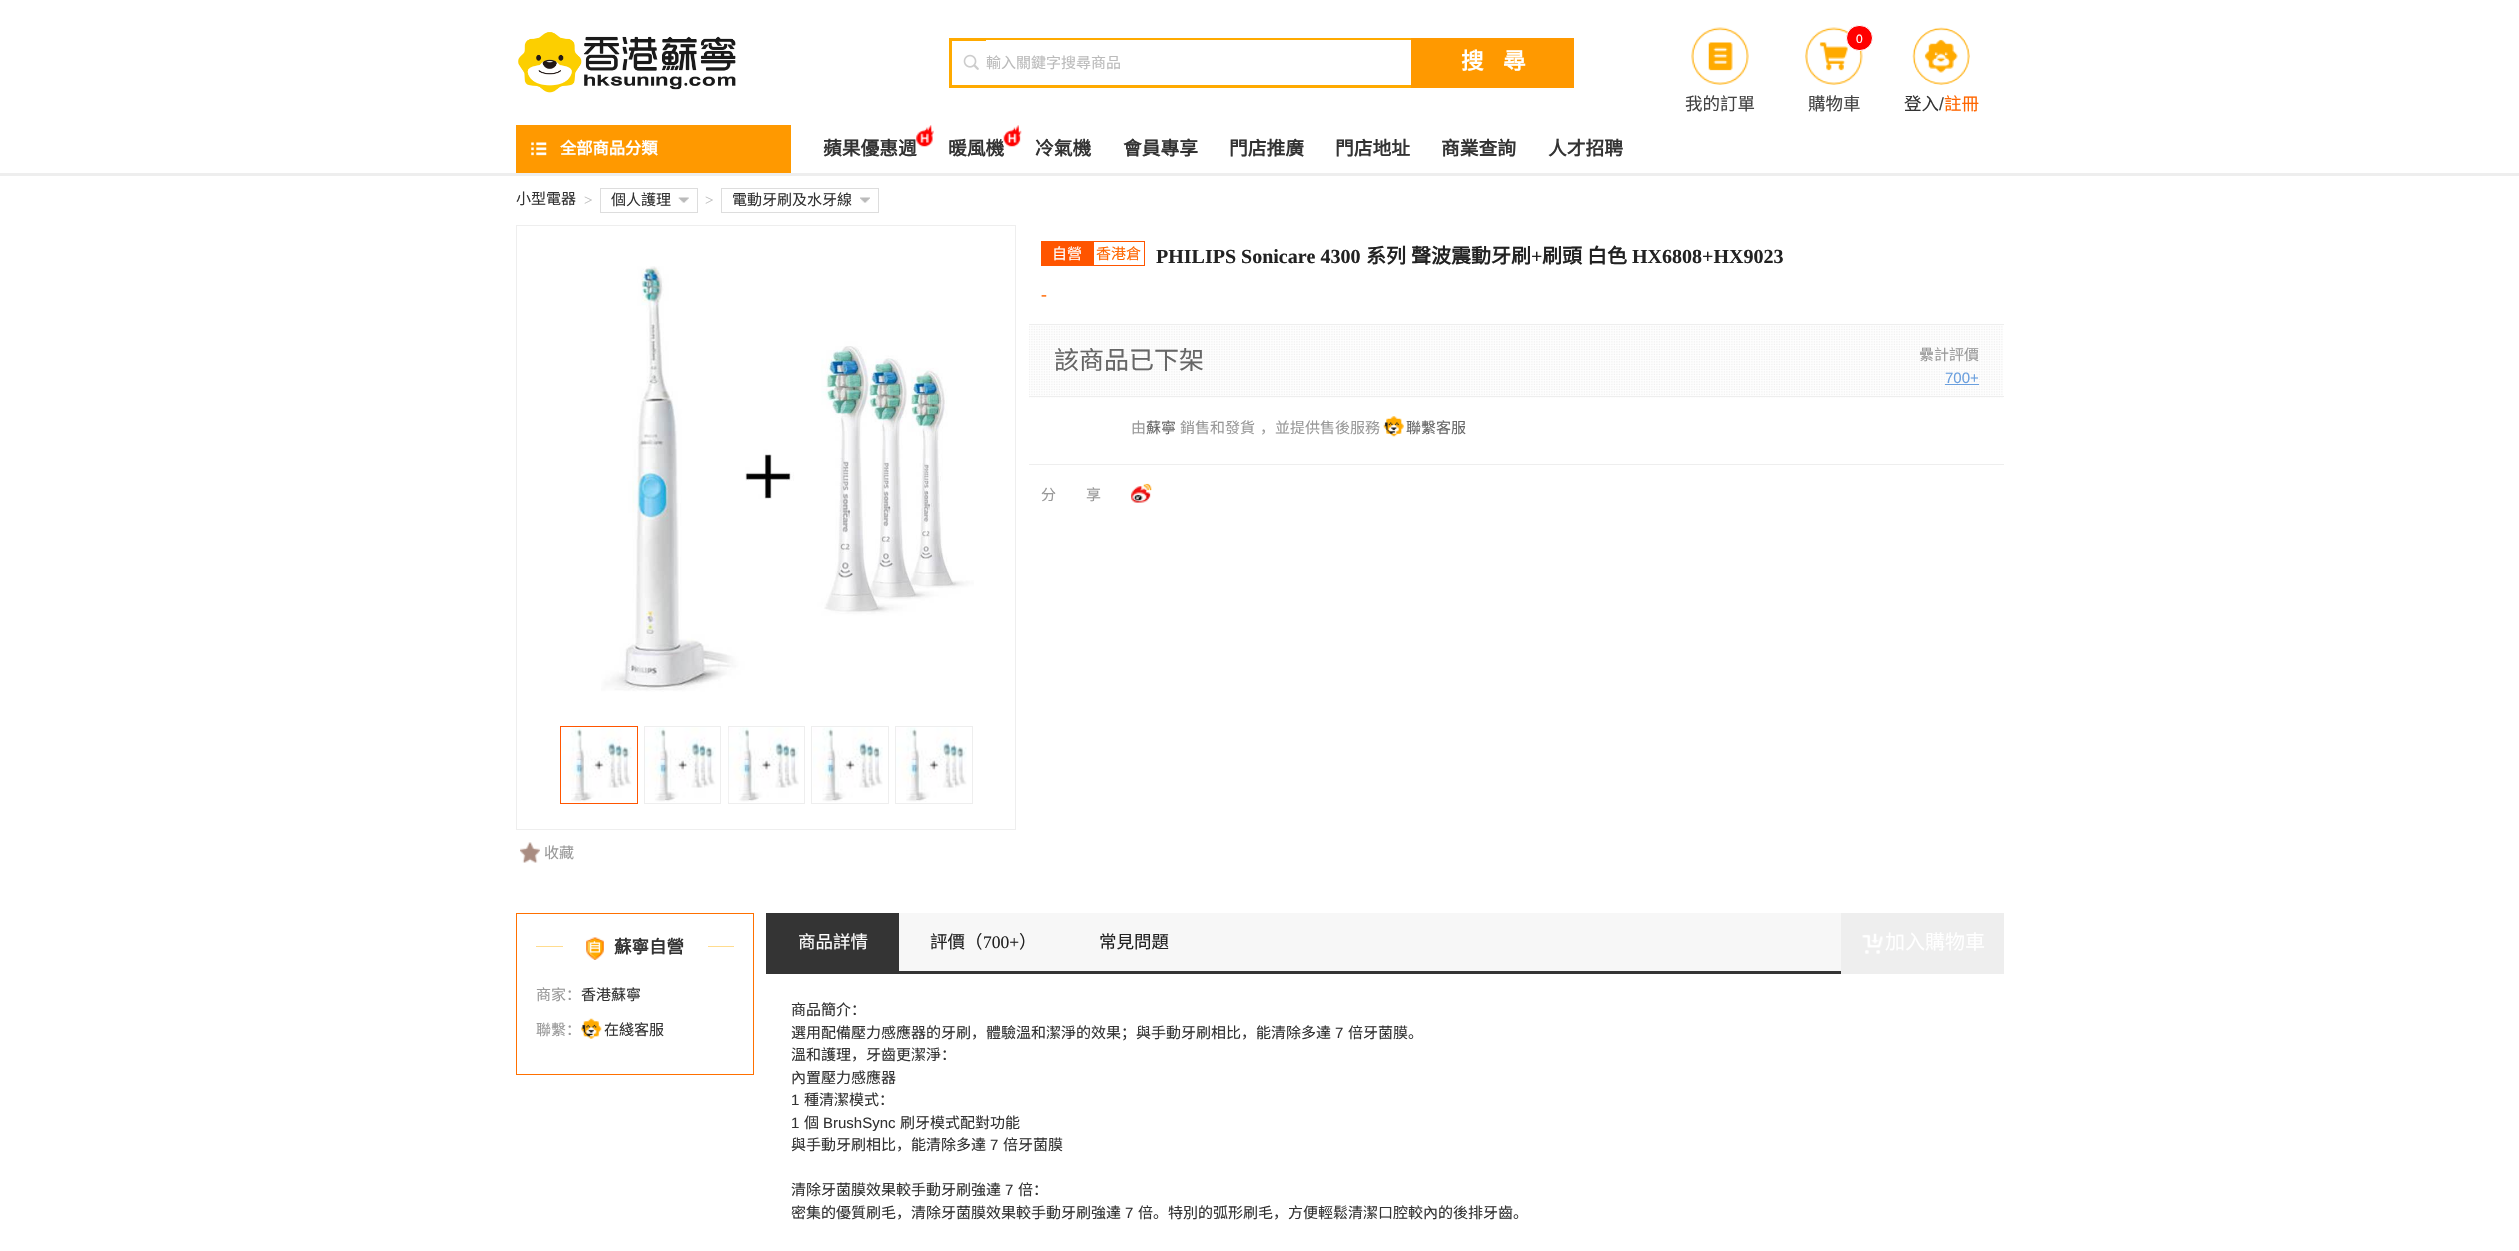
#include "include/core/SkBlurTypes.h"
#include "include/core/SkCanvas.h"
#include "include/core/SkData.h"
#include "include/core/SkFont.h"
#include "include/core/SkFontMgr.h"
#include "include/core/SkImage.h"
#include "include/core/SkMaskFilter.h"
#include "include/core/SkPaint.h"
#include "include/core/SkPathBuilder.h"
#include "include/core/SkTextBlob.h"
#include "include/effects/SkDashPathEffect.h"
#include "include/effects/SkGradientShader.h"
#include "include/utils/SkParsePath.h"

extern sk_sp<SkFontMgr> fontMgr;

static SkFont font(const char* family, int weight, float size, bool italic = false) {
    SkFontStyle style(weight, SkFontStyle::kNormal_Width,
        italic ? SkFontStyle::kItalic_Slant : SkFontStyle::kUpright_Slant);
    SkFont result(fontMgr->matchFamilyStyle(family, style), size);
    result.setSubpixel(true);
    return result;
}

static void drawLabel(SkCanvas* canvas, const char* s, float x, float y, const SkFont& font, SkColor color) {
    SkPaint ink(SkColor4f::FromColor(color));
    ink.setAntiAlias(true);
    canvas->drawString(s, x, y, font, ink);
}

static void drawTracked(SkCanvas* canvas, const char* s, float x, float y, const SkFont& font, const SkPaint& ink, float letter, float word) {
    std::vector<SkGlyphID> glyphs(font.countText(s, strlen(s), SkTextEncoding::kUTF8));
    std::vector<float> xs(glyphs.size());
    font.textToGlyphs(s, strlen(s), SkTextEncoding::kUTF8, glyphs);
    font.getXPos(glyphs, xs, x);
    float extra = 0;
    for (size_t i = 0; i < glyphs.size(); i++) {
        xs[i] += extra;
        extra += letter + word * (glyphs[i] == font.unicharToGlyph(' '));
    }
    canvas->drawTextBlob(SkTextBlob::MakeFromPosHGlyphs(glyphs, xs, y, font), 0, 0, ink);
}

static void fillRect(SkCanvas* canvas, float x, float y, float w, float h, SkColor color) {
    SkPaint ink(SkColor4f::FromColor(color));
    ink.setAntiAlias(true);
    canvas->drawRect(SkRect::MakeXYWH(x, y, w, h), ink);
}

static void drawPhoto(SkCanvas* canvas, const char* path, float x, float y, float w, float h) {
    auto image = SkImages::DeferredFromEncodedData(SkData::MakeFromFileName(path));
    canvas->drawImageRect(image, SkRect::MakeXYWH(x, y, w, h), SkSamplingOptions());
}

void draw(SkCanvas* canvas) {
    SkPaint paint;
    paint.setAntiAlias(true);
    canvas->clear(0xFFFFFFFF);
    drawPhoto(canvas, "assets/img1.png", 963, 54, 16, 16);
    fillRect(canvas, 949, 38, 462, 3, 0xFFFFAA00);
    fillRect(canvas, 949, 85, 462, 3, 0xFFFFAA00);
    fillRect(canvas, 949, 38, 3, 50, 0xFFFFAA00);
    fillRect(canvas, 986, 40, 425, 1, 0xFFFFFFFF);
    SkFont font1 = font("Noto Sans CJK SC", 400, 15);
    drawLabel(canvas, "輸入關鍵字搜尋商品", 986, 68, font1, 0xFFBBBBBB);
    fillRect(canvas, 1411, 38, 163, 50, 0xFFFF9900);
    SkFont font2 = font("Noto Sans CJK SC", 700, 22.5f);
    paint.setColor(0xFFFFFFFF);
    drawTracked(canvas, "搜  尋", 1461, 69, font2, paint, 2.5f, 1);
    drawPhoto(canvas, "assets/img2.png", 518, 32, 218, 61);
    drawPhoto(canvas, "assets/img3.png", 1691, 27, 58, 58);
    SkFont font3 = font("Noto Sans CJK SC", 400, 17.5f);
    drawLabel(canvas, "我的訂單", 1685, 110, font3, 0xFF444444);
    drawPhoto(canvas, "assets/img4.png", 1805, 27, 58, 58);
    paint.setColor(0xFFFF0000);
    canvas->drawRoundRect(SkRect::MakeXYWH(1846.5f, 25.5f, 26, 25), 12.5f, 12.5f, paint);
    paint.setStroke(true);
    paint.setStrokeWidth(1);
    paint.setColor(0xFFFFFFFF);
    canvas->drawRoundRect(SkRect::MakeXYWH(1846.5f, 25.5f, 26, 25), 12.5f, 12.5f, paint);
    SkFont font4 = font("Liberation Sans", 400, 12);
    drawLabel(canvas, "0", 1856, 43, font4, 0xFFFFFFFF);
    drawLabel(canvas, "購物車", 1808, 110, font3, 0xFF444444);
    drawPhoto(canvas, "assets/img5.png", 1912, 27, 58, 58);
    drawLabel(canvas, "登入", 1904, 110, font3, 0xFF333333);
    SkFont font5 = font("Liberation Sans", 400, 17.5f);
    drawLabel(canvas, "/", 1939, 110, font5, 0xFF444444);
    drawLabel(canvas, "註冊", 1944, 110, font3, 0xFFFF6600);
    fillRect(canvas, 0, 173, 2519, 3, 0xFFEEEEEE);
    fillRect(canvas, 516, 125, 275, 48, 0xFFFF9900);
    drawPhoto(canvas, "assets/img6.png", 531, 142, 16, 14);
    SkFont font6 = font("Noto Sans CJK SC", 700, 16.25f);
    drawLabel(canvas, "全部商品分類", 560, 154, font6, 0xFFFFFFFF);
    SkFont font7 = font("Noto Sans CJK SC", 700, 18.75f);
    drawLabel(canvas, "蘋果優惠週", 823, 155, font7, 0xFF333333);
    drawPhoto(canvas, "assets/img7.png", 916, 125, 18, 22);
    drawLabel(canvas, "暖風機", 948, 155, font7, 0xFF333333);
    drawPhoto(canvas, "assets/img8.png", 1003, 125, 19, 22);
    drawLabel(canvas, "冷氣機", 1035, 155, font7, 0xFF333333);
    drawLabel(canvas, "會員專享", 1123, 155, font7, 0xFF333333);
    drawLabel(canvas, "門店推廣", 1229, 155, font7, 0xFF333333);
    drawLabel(canvas, "門店地址", 1335, 155, font7, 0xFF333333);
    drawLabel(canvas, "商業查詢", 1441, 155, font7, 0xFF333333);
    drawLabel(canvas, "人才招聘", 1548, 155, font7, 0xFF333333);
    drawLabel(canvas, "小型電器", 516, 204, font1, 0xFF333333);
    SkFont font8 = font("Liberation Serif", 400, 15);
    drawLabel(canvas, ">", 584, 205, font8, 0xFFBBBBBB);
    paint.setColor(0xFFDDDDDD);
    canvas->drawRect(SkRect::MakeXYWH(600.5f, 188.5f, 97, 24), paint);
    drawLabel(canvas, "個人護理", 611, 205, font1, 0xFF333333);
    drawPhoto(canvas, "assets/img9.png", 678, 197, 11, 6);
    drawLabel(canvas, ">", 705, 205, font8, 0xFFBBBBBB);
    canvas->drawRect(SkRect::MakeXYWH(721.5f, 188.5f, 157, 24), paint);
    drawLabel(canvas, "電動牙刷及水牙線", 732, 205, font1, 0xFF333333);
    drawPhoto(canvas, "assets/img10.png", 860, 197, 10, 6);
    fillRect(canvas, 1041, 241, 52, 25, 0xFFFF5500);
    drawLabel(canvas, "自營", 1052, 259, font1, 0xFFFFFFFF);
    paint.setColor(0xFFFF5500);
    canvas->drawRect(SkRect::MakeXYWH(1093.5f, 241.5f, 51, 24), paint);
    drawLabel(canvas, "香港倉", 1096, 259, font1, 0xFFFF6600);
    SkFont font9 = font("Liberation Serif", 700, 20);
    drawLabel(canvas, "PHILIPS Sonicare 4300", 1156, 263, font9, 0xFF222222);
    SkFont font10 = font("Noto Sans CJK SC", 700, 20);
    drawLabel(canvas, "系列", 1366, 263, font10, 0xFF222222);
    drawLabel(canvas, "聲波震動牙刷", 1411, 263, font10, 0xFF222222);
    drawLabel(canvas, "+", 1531, 263, font9, 0xFF222222);
    drawLabel(canvas, "刷頭", 1542, 263, font10, 0xFF222222);
    drawLabel(canvas, "白色", 1587, 263, font10, 0xFF222222);
    drawLabel(canvas, "HX6808+HX9023", 1632, 263, font9, 0xFF222222);
    SkFont font11 = font("Liberation Serif", 400, 17.5f);
    drawLabel(canvas, "-", 1041, 300, font11, 0xFFFF6600);
    drawPhoto(canvas, "assets/img11.png", 1029, 325, 974, 73);
    fillRect(canvas, 1029, 324, 975, 1, 0xFFEEEEEE);
    fillRect(canvas, 1029, 396, 975, 1, 0xFFEEEEEE);
    SkFont font12 = font("Noto Sans CJK SC", 400, 25);
    drawLabel(canvas, "該商品已下架", 1054, 369, font12, 0xFF666666);
    drawLabel(canvas, "纍計評價", 1919, 360, font1, 0xFF999999);
    SkFont font13 = font("Liberation Sans", 400, 15);
    drawLabel(canvas, "700+", 1945, 383, font13, 0xFF6A9FDE);
    fillRect(canvas, 1945, 384, 34, 1, 0xFF6A9FDE);
    drawLabel(canvas, "由", 1131, 433, font1, 0xFF999999);
    drawLabel(canvas, "蘇寧", 1146, 433, font1, 0xFF666666);
    drawLabel(canvas, "銷售和發貨", 1180, 433, font1, 0xFF999999);
    drawLabel(canvas, "，並提供售後服務", 1260, 433, font1, 0xFF999999);
    drawPhoto(canvas, "assets/img12.png", 1383, 416, 21, 21);
    drawLabel(canvas, "聯繫客服", 1406, 433, font1, 0xFF666666);
    fillRect(canvas, 1029, 464, 975, 1, 0xFFEEEEEE);
    paint.setStroke(false);
    paint.setColor(0xFF999999);
    drawTracked(canvas, "分享", 1041, 500, font1, paint, 30, 0);
    drawPhoto(canvas, "assets/img13.png", 1131, 483, 21, 20);
    paint.setStroke(true);
    paint.setColor(0xFFEEEEEE);
    canvas->drawRect(SkRect::MakeXYWH(516.5f, 225.5f, 499, 604), paint);
    drawPhoto(canvas, "assets/img14.png", 601, 266, 373, 426);
    paint.setColor(0xFFFF5500);
    canvas->drawRect(SkRect::MakeXYWH(560.5f, 726.5f, 77, 77), paint);
    drawPhoto(canvas, "assets/img15.png", 561, 727, 71, 75);
    paint.setColor(0xFFEEEEEE);
    canvas->drawRect(SkRect::MakeXYWH(644.5f, 726.5f, 76, 77), paint);
    drawPhoto(canvas, "assets/img16.png", 645, 727, 71, 75);
    canvas->drawRect(SkRect::MakeXYWH(728.5f, 726.5f, 76, 77), paint);
    drawPhoto(canvas, "assets/img17.png", 728, 727, 71, 75);
    canvas->drawRect(SkRect::MakeXYWH(811.5f, 726.5f, 77, 77), paint);
    drawPhoto(canvas, "assets/img18.png", 813, 727, 70, 75);
    canvas->drawRect(SkRect::MakeXYWH(895.5f, 726.5f, 77, 77), paint);
    drawPhoto(canvas, "assets/img19.png", 896, 727, 71, 75);
    drawPhoto(canvas, "assets/img20.png", 520, 842, 20, 21);
    drawLabel(canvas, "收藏", 544, 858, font1, 0xFF999999);
    paint.setColor(0xFFFF7000);
    canvas->drawRect(SkRect::MakeXYWH(516.5f, 913.5f, 237, 161), paint);
    fillRect(canvas, 536, 946, 198, 1, 0xFFFFDC8F);
    fillRect(canvas, 563, 946, 145, 1, 0xFFFFFFFF);
    drawPhoto(canvas, "assets/img21.png", 586, 937, 18, 23);
    SkFont font14 = font("Noto Sans CJK SC", 700, 17.5f);
    drawLabel(canvas, "蘇寧自營", 614, 953, font14, 0xFF333333);
    drawLabel(canvas, "商家：", 536, 1000, font1, 0xFF999999);
    drawLabel(canvas, "香港蘇寧", 581, 1000, font1, 0xFF333333);
    drawLabel(canvas, "聯繫：", 536, 1035, font1, 0xFF999999);
    drawPhoto(canvas, "assets/img22.png", 581, 1018, 21, 21);
    drawLabel(canvas, "在綫客服", 604, 1035, font1, 0xFF333333);
    fillRect(canvas, 899, 913, 942, 58, 0xFFF7F7F7);
    fillRect(canvas, 766, 971, 1075, 3, 0xFF343434);
    fillRect(canvas, 766, 913, 133, 58, 0xFF343434);
    drawLabel(canvas, "商品詳情", 798, 948, font3, 0xFFFFFFFF);
    drawLabel(canvas, "評價（", 930, 948, font3, 0xFF222222);
    drawLabel(canvas, "700+", 983, 948, font11, 0xFF222222);
    drawLabel(canvas, "）", 1019, 948, font3, 0xFF222222);
    drawLabel(canvas, "常見問題", 1099, 948, font3, 0xFF222222);
    fillRect(canvas, 1841, 913, 163, 61, 0xFFEEEEEE);
    drawPhoto(canvas, "assets/img23.png", 1862, 933, 21, 21);
    SkFont font15 = font("Noto Sans CJK SC", 400, 20);
    drawLabel(canvas, "加入購物車", 1885, 949, font15, 0xFFFFFFFF);
    drawLabel(canvas, "商品簡介：", 791, 1015, font1, 0xFF333333);
    drawLabel(canvas, "選用配備壓力感應器的牙刷，體驗溫和潔淨的效果；與手動牙刷相比，能清除多達", 791, 1038, font1, 0xFF333333);
    drawLabel(canvas, "7", 1335, 1038, font13, 0xFF333333);
    drawLabel(canvas, "倍牙菌膜。", 1348, 1038, font1, 0xFF333333);
    drawLabel(canvas, "溫和護理，牙齒更潔淨：", 791, 1060, font1, 0xFF333333);
    drawLabel(canvas, "內置壓力感應器", 791, 1083, font1, 0xFF333333);
    drawLabel(canvas, "1", 791, 1105, font13, 0xFF333333);
    drawLabel(canvas, "種清潔模式：", 804, 1105, font1, 0xFF333333);
    drawLabel(canvas, "1", 791, 1128, font13, 0xFF333333);
    drawLabel(canvas, "個", 804, 1128, font1, 0xFF333333);
    drawLabel(canvas, "BrushSync", 823, 1128, font13, 0xFF333333);
    drawLabel(canvas, "刷牙模式配對功能", 900, 1128, font1, 0xFF333333);
    drawLabel(canvas, "與手動牙刷相比，能清除多達", 791, 1150, font1, 0xFF333333);
    drawLabel(canvas, "7", 990, 1150, font13, 0xFF333333);
    drawLabel(canvas, "倍牙菌膜", 1003, 1150, font1, 0xFF333333);
    drawLabel(canvas, "清除牙菌膜效果較手動牙刷強達", 791, 1195, font1, 0xFF333333);
    drawLabel(canvas, "7", 1005, 1195, font13, 0xFF333333);
    drawLabel(canvas, "倍：", 1018, 1195, font1, 0xFF333333);
    drawLabel(canvas, "密集的優質刷毛，清除牙菌膜效果較手動牙刷強達", 791, 1218, font1, 0xFF333333);
    drawLabel(canvas, "7", 1125, 1218, font13, 0xFF333333);
    drawLabel(canvas, "倍。特別的弧形刷毛，方便輕鬆清潔口腔較內的後排牙齒。", 1138, 1218, font1, 0xFF333333);
}
